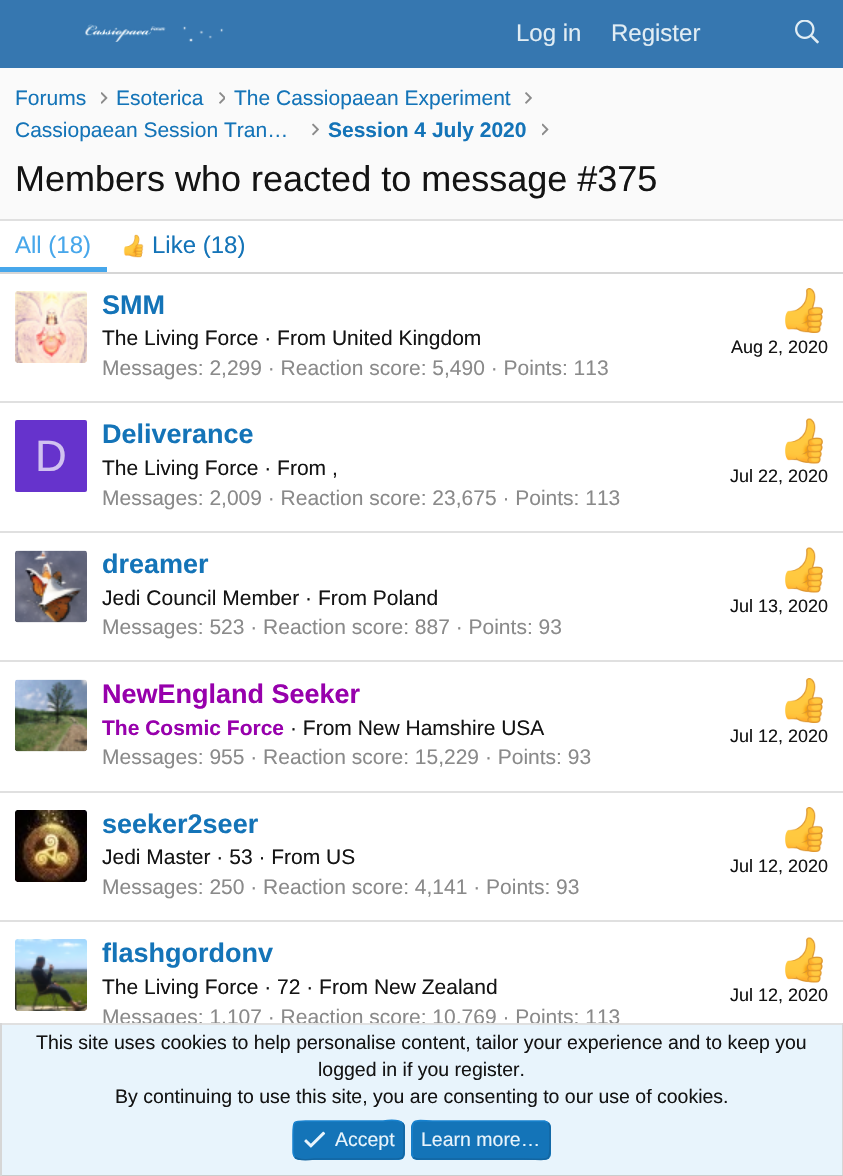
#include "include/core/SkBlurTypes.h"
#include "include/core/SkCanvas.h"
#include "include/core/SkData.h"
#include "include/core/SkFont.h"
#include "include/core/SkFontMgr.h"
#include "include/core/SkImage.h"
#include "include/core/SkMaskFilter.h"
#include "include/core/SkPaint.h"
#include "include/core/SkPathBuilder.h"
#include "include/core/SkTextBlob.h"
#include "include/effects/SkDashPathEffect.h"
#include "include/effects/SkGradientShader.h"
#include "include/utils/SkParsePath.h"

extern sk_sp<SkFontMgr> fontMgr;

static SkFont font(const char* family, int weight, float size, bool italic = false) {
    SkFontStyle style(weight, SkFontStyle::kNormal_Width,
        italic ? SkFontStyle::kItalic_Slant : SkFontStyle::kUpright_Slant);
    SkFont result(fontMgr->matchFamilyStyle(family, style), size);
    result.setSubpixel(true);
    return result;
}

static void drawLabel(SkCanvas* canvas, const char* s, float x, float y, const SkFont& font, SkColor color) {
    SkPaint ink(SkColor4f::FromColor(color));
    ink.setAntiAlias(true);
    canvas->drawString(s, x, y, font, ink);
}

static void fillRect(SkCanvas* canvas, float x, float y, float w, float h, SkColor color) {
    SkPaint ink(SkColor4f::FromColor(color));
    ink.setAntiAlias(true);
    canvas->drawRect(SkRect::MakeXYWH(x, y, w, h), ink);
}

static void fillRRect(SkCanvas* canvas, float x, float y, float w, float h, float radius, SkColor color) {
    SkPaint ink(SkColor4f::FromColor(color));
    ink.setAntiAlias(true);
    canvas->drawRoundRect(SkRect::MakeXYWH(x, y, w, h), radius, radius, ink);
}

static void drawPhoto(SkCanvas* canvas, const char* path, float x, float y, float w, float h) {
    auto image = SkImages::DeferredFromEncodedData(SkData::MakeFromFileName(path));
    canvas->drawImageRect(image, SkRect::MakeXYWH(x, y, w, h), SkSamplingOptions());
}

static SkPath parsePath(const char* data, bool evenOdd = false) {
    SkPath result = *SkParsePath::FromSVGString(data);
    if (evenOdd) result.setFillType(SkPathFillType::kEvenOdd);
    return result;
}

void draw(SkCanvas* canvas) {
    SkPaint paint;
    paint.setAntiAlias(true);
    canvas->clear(0xFFFAFAFA);
    fillRect(canvas, 0, 0, 843, 68, 0xFF3677B0);
    drawPhoto(canvas, "assets/img1.png", 85, 24, 139, 18);
    SkFont font1 = font("Liberation Sans", 400, 24);
    drawLabel(canvas, "Log in", 516, 41, font1, 0xFFE1EDF4);
    drawLabel(canvas, "Register", 611, 41, font1, 0xFFE1EDF4);
    drawPhoto(canvas, "assets/img2.png", 795, 20, 24, 24);
    SkFont font2 = font("Liberation Sans", 400, 21);
    drawLabel(canvas, "Forums", 15, 105, font2, 0xFF1474B8);
    drawPhoto(canvas, "assets/img3.png", 101, 92, 7, 12);
    drawLabel(canvas, "Esoterica", 116, 105, font2, 0xFF1474B8);
    drawPhoto(canvas, "assets/img4.png", 219, 92, 6, 12);
    drawLabel(canvas, "The Cassiopaean Experiment", 234, 105, font2, 0xFF1474B8);
    drawPhoto(canvas, "assets/img5.png", 525, 92, 7, 12);
    drawLabel(canvas, "Cassiopaean Session Tran…", 15, 137, font2, 0xFF1474B8);
    drawPhoto(canvas, "assets/img6.png", 312, 123, 7, 13);
    SkFont font3 = font("Liberation Sans", 700, 21);
    drawLabel(canvas, "Session 4 July 2020", 328, 137, font3, 0xFF1474B8);
    drawPhoto(canvas, "assets/img7.png", 542, 123, 7, 13);
    SkFont font4 = font("Liberation Sans", 400, 36);
    drawLabel(canvas, "Members who reacted to message #375", 15, 191, font4, 0xFF141414);
    fillRect(canvas, 0, 221, 843, 802, 0xFFFFFFFF);
    fillRect(canvas, 0, 219, 843, 2, 0xFFE0E0E0);
    fillRect(canvas, 0, 272, 843, 2, 0xFFD6D6D6);
    fillRect(canvas, 0, 267, 107, 5, 0xFF47A7EB);
    drawLabel(canvas, "All (18)", 15, 253, font1, 0xFF47A7EB);
    drawPhoto(canvas, "assets/img8.png", 123, 234, 21, 24);
    drawLabel(canvas, "Like (18)", 152, 253, font1, 0xFF1474B8);
    drawPhoto(canvas, "assets/img9.png", 15, 291, 72, 72);
    SkFont font5 = font("Liberation Sans", 700, 27);
    drawLabel(canvas, "SMM", 102, 314, font5, 0xFF1474B8);
    drawLabel(canvas, "The Living Force · From United Kingdom", 102, 345, font2, 0xFF141414);
    drawPhoto(canvas, "assets/img10.png", 785, 288, 38, 45);
    SkFont font6 = font("Liberation Sans", 400, 18);
    drawLabel(canvas, "Aug 2, 2020", 731, 353, font6, 0xFF141414);
    drawLabel(canvas, "Messages: 2,299 · Reaction score: 5,490 · Points: 113", 102, 375, font2, 0xFF8A8A8A);
    fillRect(canvas, 0, 401, 843, 2, 0xFFE0E0E0);
    fillRRect(canvas, 15, 420, 72, 72, 2, 0xFF6633CC);
    SkFont font7 = font("Liberation Sans", 400, 44);
    drawLabel(canvas, "D", 35, 471, font7, 0xFFD1C2F0);
    drawLabel(canvas, "Deliverance", 102, 443, font5, 0xFF1474B8);
    drawLabel(canvas, "The Living Force · From ,", 102, 475, font2, 0xFF141414);
    drawPhoto(canvas, "assets/img11.png", 785, 418, 38, 46);
    drawLabel(canvas, "Jul 22, 2020", 730, 482, font6, 0xFF141414);
    drawLabel(canvas, "Messages: 2,009 · Reaction score: 23,675 · Points: 113", 102, 505, font2, 0xFF8A8A8A);
    fillRect(canvas, 0, 531, 843, 2, 0xFFE0E0E0);
    drawPhoto(canvas, "assets/img12.png", 15, 550, 72, 73);
    drawLabel(canvas, "dreamer", 102, 573, font5, 0xFF1474B8);
    drawLabel(canvas, "Jedi Council Member · From Poland", 102, 605, font2, 0xFF141414);
    drawPhoto(canvas, "assets/img11.png", 785, 547, 38, 46);
    drawLabel(canvas, "Jul 13, 2020", 730, 612, font6, 0xFF141414);
    drawLabel(canvas, "Messages: 523 · Reaction score: 887 · Points: 93", 102, 634, font2, 0xFF8A8A8A);
    fillRect(canvas, 0, 660, 843, 2, 0xFFE0E0E0);
    drawPhoto(canvas, "assets/img13.png", 15, 679, 72, 73);
    drawLabel(canvas, "NewEngland Seeker", 102, 703, font5, 0xFF9700AC);
    drawLabel(canvas, "The Cosmic Force", 102, 735, font3, 0xFF9700AC);
    drawLabel(canvas, "· From New Hamshire USA", 290, 735, font2, 0xFF141414);
    drawPhoto(canvas, "assets/img10.png", 785, 678, 38, 45);
    drawLabel(canvas, "Jul 12, 2020", 730, 742, font6, 0xFF141414);
    drawLabel(canvas, "Messages: 955 · Reaction score: 15,229 · Points: 93", 102, 764, font2, 0xFF8A8A8A);
    fillRect(canvas, 0, 791, 843, 2, 0xFFE0E0E0);
    drawPhoto(canvas, "assets/img14.png", 15, 810, 72, 72);
    drawLabel(canvas, "seeker2seer", 102, 833, font5, 0xFF1474B8);
    drawLabel(canvas, "Jedi Master · 53 · From US", 102, 864, font2, 0xFF141414);
    drawPhoto(canvas, "assets/img10.png", 785, 807, 38, 45);
    drawLabel(canvas, "Jul 12, 2020", 730, 872, font6, 0xFF141414);
    drawLabel(canvas, "Messages: 250 · Reaction score: 4,141 · Points: 93", 102, 894, font2, 0xFF8A8A8A);
    fillRect(canvas, 0, 920, 843, 2, 0xFFE0E0E0);
    drawPhoto(canvas, "assets/img15.png", 15, 939, 72, 72);
    drawLabel(canvas, "flashgordonv", 102, 962, font5, 0xFF1474B8);
    drawLabel(canvas, "The Living Force · 72 · From New Zealand", 102, 994, font2, 0xFF141414);
    drawPhoto(canvas, "assets/img11.png", 785, 937, 38, 46);
    drawLabel(canvas, "Jul 12, 2020", 730, 1001, font6, 0xFF141414);
    drawLabel(canvas, "Messages: 1,107 · Reaction score: 10,769 · Points: 113", 102, 1024, font2, 0xFF8A8A8A);
    fillRect(canvas, 2, 1025, 840, 150, 0xFFE8F4FC);
    fillRect(canvas, 0, 1023, 843, 2, 0xFFE0E0E0);
    fillRect(canvas, 842, 1023, 1, 153, 0xFFD6D6D6);
    fillRect(canvas, 0, 1175, 843, 1, 0xFFCCCCCC);
    fillRect(canvas, 0, 1023, 2, 153, 0xFFD6D6D6);
    SkFont font8 = font("Liberation Sans", 400, 19.5f);
    drawLabel(canvas, "This site uses cookies to help personalise content, tailor your experience and to keep you", 36, 1049, font8, 0xFF141414);
    drawLabel(canvas, "logged in if you register.", 318, 1076, font8, 0xFF141414);
    drawLabel(canvas, "By continuing to use this site, you are consenting to our use of cookies.", 115, 1103, font8, 0xFF141414);
    fillRRect(canvas, 293, 1121, 112, 39, 6, 0xFF1474B8);
    paint.setStroke(true);
    paint.setStrokeWidth(1.5f);
    paint.setColor(0xFF1265A1);
    canvas->drawPath(parsePath("M402.5 1123C405 1125 404 1128.5 404 1131V1140C404 1162 406.5 1159 382 1159H315C314.5 1159 299 1161.5 295 1157"), paint);
    paint.setColor(0xFF1782CF);
    canvas->drawPath(parsePath("M295 1157C292.5 1155 293 1151.5 293 1149V1140C293 1118 291 1121 315 1121H382C383 1121 398.5 1118.5 402.5 1123"), paint);
    drawPhoto(canvas, "assets/img16.png", 304, 1131, 22, 17);
    drawLabel(canvas, "Accept", 335, 1146, font8, 0xFFE8F4FC);
    fillRRect(canvas, 411, 1121, 140, 39, 6, 0xFF1474B8);
    paint.setColor(0xFF1265A1);
    canvas->drawPath(parsePath("M548 1123C550.5 1125 550 1128.5 550 1131V1140C550 1164 551 1159 523 1159H417C415.5 1158.5 414.5 1158 413.5 1157"), paint);
    paint.setColor(0xFF1782CF);
    canvas->drawPath(parsePath("M413.5 1157C411 1155 412 1151.5 412 1149V1140C412 1116 410.5 1121 438 1121H544.5C546 1121.5 547 1122 548 1123"), paint);
    drawLabel(canvas, "Learn more…", 421, 1146, font8, 0xFFE8F4FC);
}
